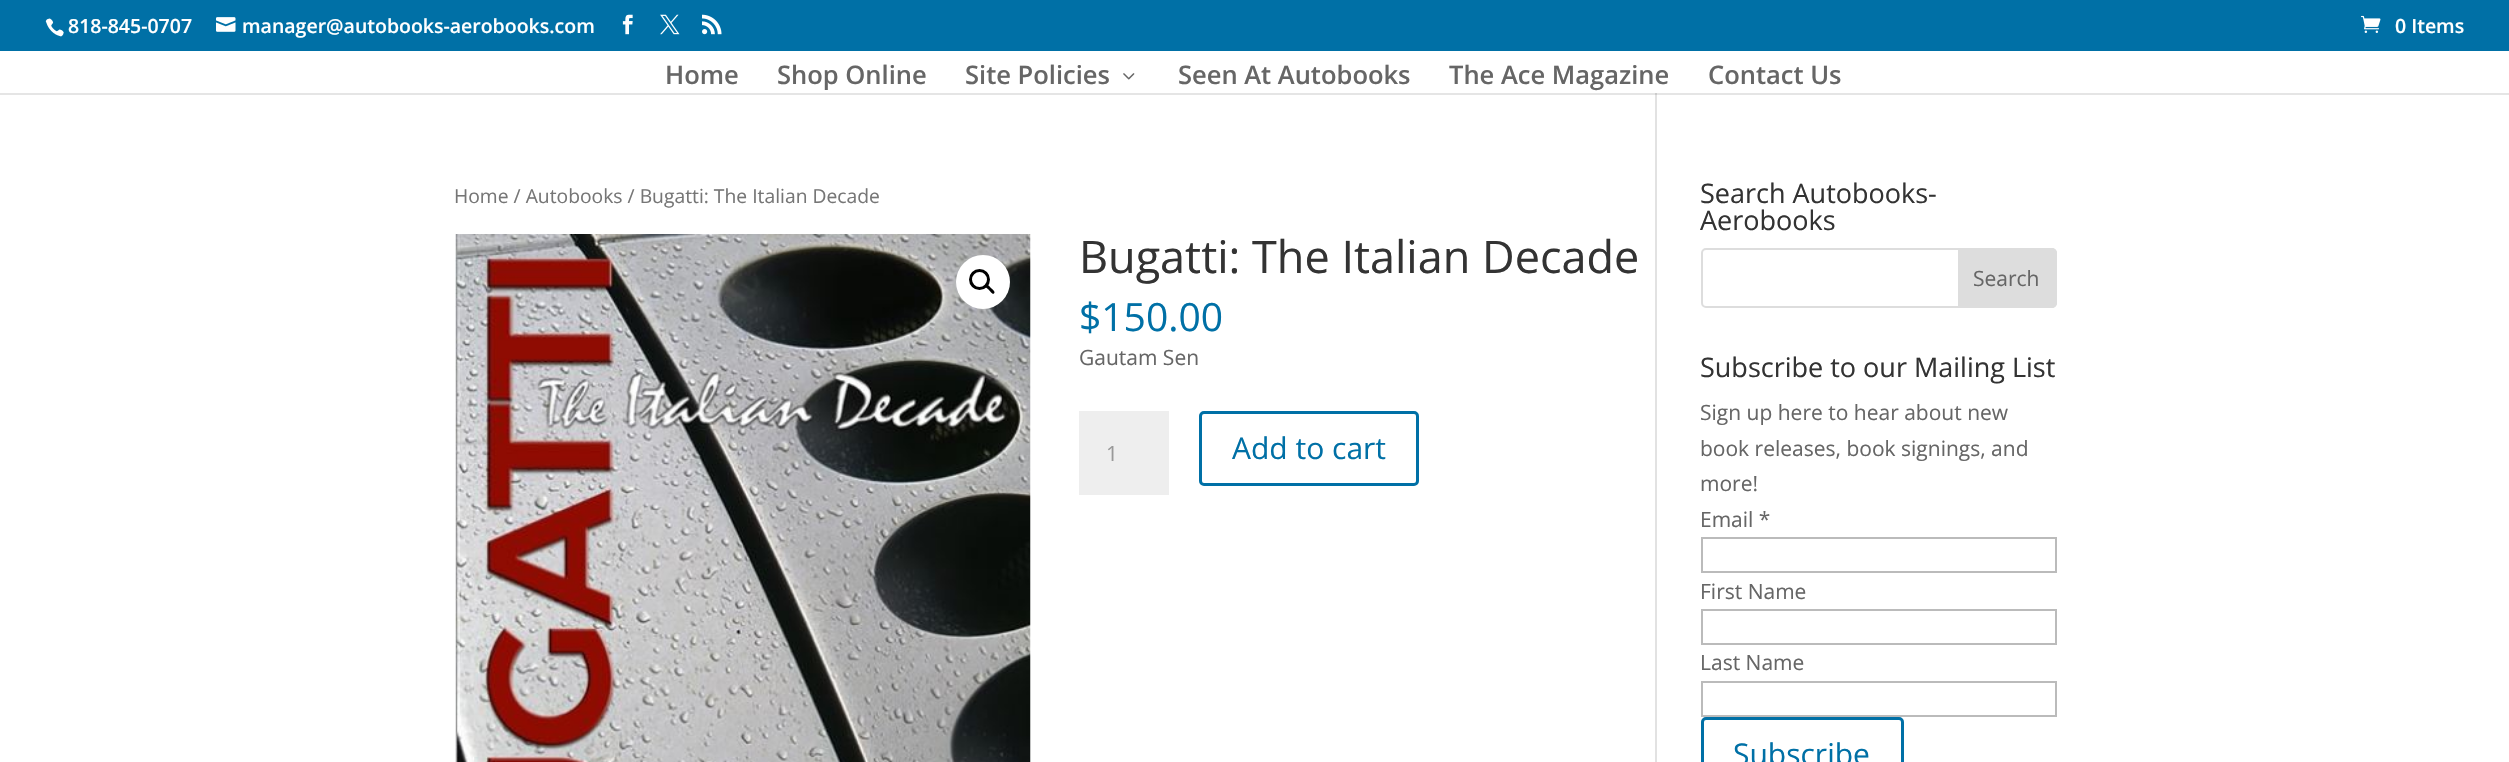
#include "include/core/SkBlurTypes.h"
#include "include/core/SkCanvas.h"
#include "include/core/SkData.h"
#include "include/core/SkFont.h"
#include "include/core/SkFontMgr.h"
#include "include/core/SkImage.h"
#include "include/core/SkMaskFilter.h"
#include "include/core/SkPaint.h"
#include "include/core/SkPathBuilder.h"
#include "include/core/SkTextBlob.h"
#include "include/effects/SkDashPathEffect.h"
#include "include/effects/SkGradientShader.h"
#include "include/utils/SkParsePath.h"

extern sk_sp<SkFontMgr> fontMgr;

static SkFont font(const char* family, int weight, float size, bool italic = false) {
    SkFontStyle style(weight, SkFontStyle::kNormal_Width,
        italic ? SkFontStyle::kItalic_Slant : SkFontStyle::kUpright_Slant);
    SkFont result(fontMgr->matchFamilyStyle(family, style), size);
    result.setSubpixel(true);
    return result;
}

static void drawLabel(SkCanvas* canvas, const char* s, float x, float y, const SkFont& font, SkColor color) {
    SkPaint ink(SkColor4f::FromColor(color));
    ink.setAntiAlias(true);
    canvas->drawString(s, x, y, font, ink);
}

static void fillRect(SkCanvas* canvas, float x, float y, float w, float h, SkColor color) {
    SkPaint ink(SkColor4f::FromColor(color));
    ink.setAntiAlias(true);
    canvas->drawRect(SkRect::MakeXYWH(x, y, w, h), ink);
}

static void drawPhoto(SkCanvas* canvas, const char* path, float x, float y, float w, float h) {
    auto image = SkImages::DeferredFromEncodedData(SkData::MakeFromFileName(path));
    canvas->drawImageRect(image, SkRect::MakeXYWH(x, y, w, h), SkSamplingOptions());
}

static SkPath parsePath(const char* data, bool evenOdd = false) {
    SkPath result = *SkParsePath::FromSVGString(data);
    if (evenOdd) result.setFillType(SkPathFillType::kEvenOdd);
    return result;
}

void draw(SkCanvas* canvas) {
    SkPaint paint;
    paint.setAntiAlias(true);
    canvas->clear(0xFFFFFFFF);
    fillRect(canvas, 0, 0, 2509, 51, 0xFF0070A6);
    drawPhoto(canvas, "assets/img1.png", 45, 18, 19, 19);
    SkFont font1 = font("Open Sans", 600, 19.5f);
    drawLabel(canvas, "818-845-0707", 68, 33, font1, 0xFFFFFFFF);
    drawPhoto(canvas, "assets/img2.png", 216, 17, 20, 15);
    drawLabel(canvas, "manager@autobooks-aerobooks.com", 242, 33, font1, 0xFFFFFFFF);
    drawPhoto(canvas, "assets/img3.png", 622, 14, 11, 21);
    drawPhoto(canvas, "assets/img4.png", 660, 14, 20, 21);
    drawPhoto(canvas, "assets/img5.png", 702, 14, 20, 21);
    drawPhoto(canvas, "assets/img6.png", 2361, 15, 20, 18);
    drawLabel(canvas, "0 Items", 2395, 33, font1, 0xFFFFFFFF);
    fillRect(canvas, 1655, 92, 2, 670, 0xFFE2E2E2);
    paint.setColor(0x1A000000);
    canvas->drawPath(parsePath("M0 93V95H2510V53V93Z"), paint);
    fillRect(canvas, 1655, 92, 2, 1, 0xFFFFFFFF);
    SkFont font2 = font("Open Sans", 600, 25.5f);
    drawLabel(canvas, "Home", 665, 84, font2, 0xFF666666);
    drawLabel(canvas, "Shop Online", 777, 84, font2, 0xFF666666);
    drawLabel(canvas, "Site Policies", 965, 84, font2, 0xFF666666);
    drawPhoto(canvas, "assets/img7.png", 1123, 73, 12, 7);
    drawLabel(canvas, "Seen At Autobooks", 1178, 84, font2, 0xFF666666);
    drawLabel(canvas, "The Ace Magazine", 1449, 84, font2, 0xFF666666);
    drawLabel(canvas, "Contact Us", 1708, 84, font2, 0xFF666666);
    SkFont font3 = font("Open Sans", 400, 19.3f);
    drawLabel(canvas, "Home / Autobooks / Bugatti: The Italian Decade", 454, 203, font3, 0xFF767676);
    drawPhoto(canvas, "assets/img8.png", 455, 234, 576, 528);
    paint.setColor(0xFFFFFFFF);
    canvas->drawCircle(983, 282, 27, paint);
    paint.setStroke(true);
    paint.setStrokeWidth(3);
    paint.setColor(0xFF000000);
    canvas->drawCircle(979.5f, 279.5f, 9, paint);
    paint.setStroke(false);
    canvas->drawPath(parsePath("M985.5 285C987.5 283 990 287 991 288C992 289 996 291.5 994 293.5C992.5 295 990 291 989 290C988 289 984 286.5 985.5 285Z"), paint);
    SkFont font4 = font("Open Sans", 400, 45);
    drawLabel(canvas, "Bugatti: The Italian Decade", 1079, 273, font4, 0xFF333333);
    SkFont font5 = font("Open Sans", 400, 39);
    drawLabel(canvas, "$150.00", 1079, 331, font5, 0xFF0070A6);
    SkFont font6 = font("Open Sans", 400, 21);
    drawLabel(canvas, "Gautam Sen", 1079, 365, font6, 0xFF666666);
    fillRect(canvas, 1079, 411, 90, 84, 0xFFEEEEEE);
    drawLabel(canvas, "1", 1106, 461, font6, 0xFF999999);
    paint.setStroke(true);
    paint.setColor(0xFF0070A6);
    canvas->drawRoundRect(SkRect::MakeXYWH(1200.5f, 412.5f, 217, 72), 3.5f, 3.5f, paint);
    SkFont font7 = font("Open Sans", 400, 30);
    drawLabel(canvas, "Add to cart", 1232, 459, font7, 0xFF0070A6);
    SkFont font8 = font("Open Sans", 400, 27);
    drawLabel(canvas, "Search Autobooks-", 1700, 203, font8, 0xFF333333);
    drawLabel(canvas, "Aerobooks", 1700, 230, font8, 0xFF333333);
    paint.setStrokeWidth(2);
    paint.setColor(0xFFDDDDDD);
    canvas->drawRoundRect(SkRect::MakeXYWH(1702, 249, 354, 58), 4, 4, paint);
    paint.setStroke(false);
    canvas->drawPath(parsePath("M1959 249H2052C2054 249 2056 251 2056 253V303C2056 305 2054 307 2052 307H1959Z"), paint);
    paint.setStroke(true);
    canvas->drawPath(parsePath("M1959 249H2052C2054 249 2056 251 2056 253V303C2056 305 2054 307 2052 307H1959Z"), paint);
    drawLabel(canvas, "Search", 1973, 286, font6, 0xFF666666);
    drawLabel(canvas, "Subscribe to our Mailing List", 1700, 377, font8, 0xFF333333);
    drawLabel(canvas, "Sign up here to hear about new", 1700, 420, font6, 0xFF666666);
    drawLabel(canvas, "book releases, book signings, and", 1700, 456, font6, 0xFF666666);
    drawLabel(canvas, "more!", 1700, 491, font6, 0xFF666666);
    drawLabel(canvas, "Email *", 1700, 527, font6, 0xFF666666);
    paint.setColor(0xFFBBBBBB);
    canvas->drawRect(SkRect::MakeXYWH(1702, 538, 354, 34), paint);
    drawLabel(canvas, "First Name", 1700, 599, font6, 0xFF666666);
    canvas->drawRect(SkRect::MakeXYWH(1702, 610, 354, 34), paint);
    drawLabel(canvas, "Last Name", 1700, 670, font6, 0xFF666666);
    canvas->drawRect(SkRect::MakeXYWH(1702, 682, 354, 34), paint);
    paint.setStrokeWidth(3);
    paint.setColor(0xFF0070A6);
    canvas->drawRoundRect(SkRect::MakeXYWH(1702.5f, 718.5f, 200, 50), 3.5f, 3.5f, paint);
    drawLabel(canvas, "Subscribe", 1733, 765, font7, 0xFF0070A6);
}
